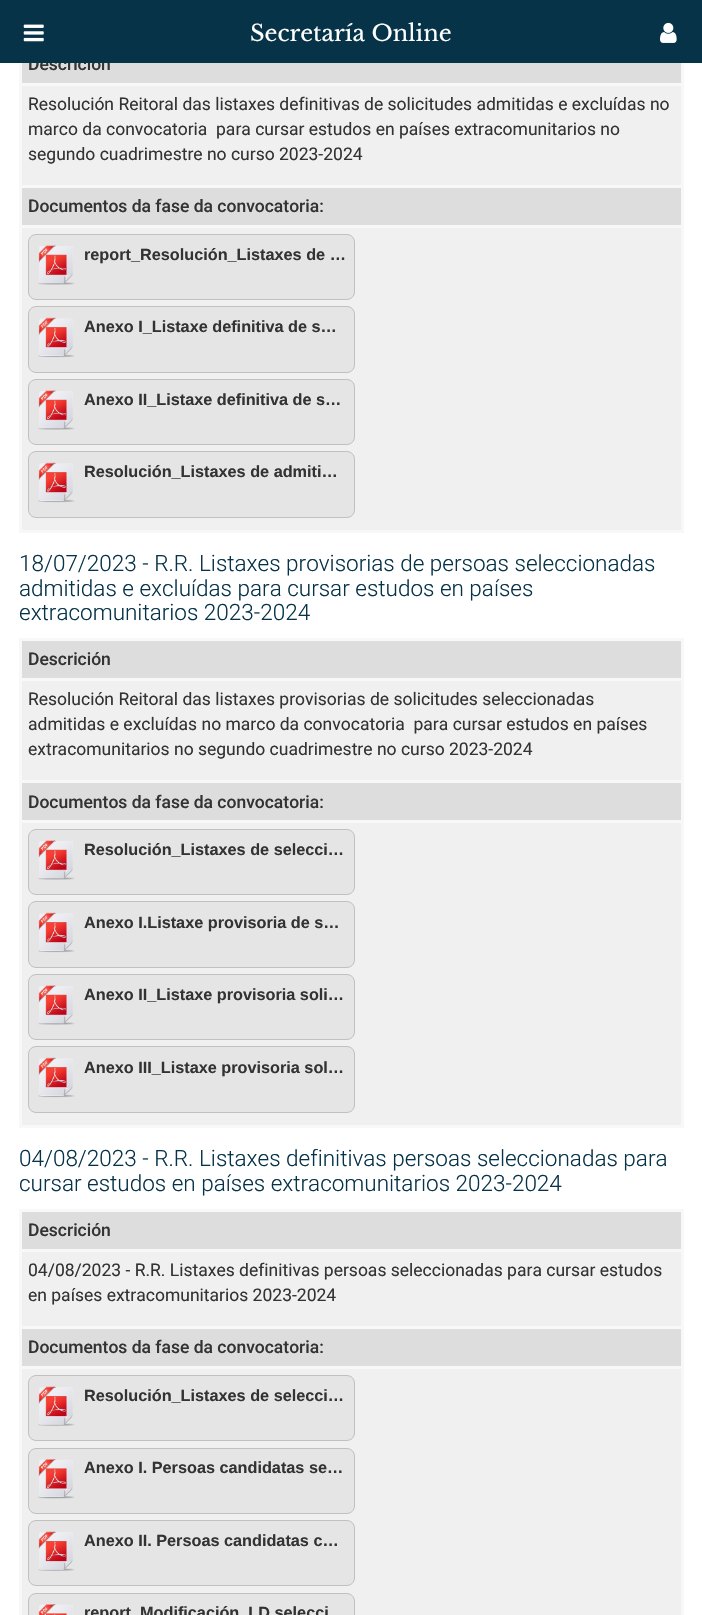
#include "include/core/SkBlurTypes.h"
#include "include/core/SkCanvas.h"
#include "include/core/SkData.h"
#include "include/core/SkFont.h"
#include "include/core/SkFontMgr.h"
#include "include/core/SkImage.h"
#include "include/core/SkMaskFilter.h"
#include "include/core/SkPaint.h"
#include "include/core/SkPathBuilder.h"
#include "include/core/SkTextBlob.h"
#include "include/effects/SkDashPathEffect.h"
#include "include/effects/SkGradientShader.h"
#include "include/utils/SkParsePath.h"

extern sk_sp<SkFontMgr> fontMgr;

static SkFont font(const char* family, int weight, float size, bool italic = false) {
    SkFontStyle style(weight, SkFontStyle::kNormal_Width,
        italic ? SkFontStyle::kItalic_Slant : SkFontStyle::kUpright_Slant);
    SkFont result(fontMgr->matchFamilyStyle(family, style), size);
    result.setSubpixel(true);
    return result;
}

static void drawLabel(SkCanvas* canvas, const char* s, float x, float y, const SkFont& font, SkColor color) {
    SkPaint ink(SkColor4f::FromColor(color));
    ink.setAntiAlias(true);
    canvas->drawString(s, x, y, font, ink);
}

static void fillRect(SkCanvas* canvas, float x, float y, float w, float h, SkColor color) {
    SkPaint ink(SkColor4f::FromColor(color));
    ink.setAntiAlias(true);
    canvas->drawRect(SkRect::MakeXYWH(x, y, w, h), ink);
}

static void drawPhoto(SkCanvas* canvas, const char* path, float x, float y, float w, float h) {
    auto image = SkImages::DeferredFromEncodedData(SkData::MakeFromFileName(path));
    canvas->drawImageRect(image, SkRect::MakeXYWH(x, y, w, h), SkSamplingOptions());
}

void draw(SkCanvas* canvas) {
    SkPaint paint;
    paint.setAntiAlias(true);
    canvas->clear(0xFFFFFFFF);
    fillRect(canvas, 22, 63, 659, 20, 0xFFDDDDDD);
    SkFont font1 = font("Roboto", 500, 17.5f);
    drawLabel(canvas, "Descrición", 28, 70, font1, 0xFF333333);
    fillRect(canvas, 0, 0, 702, 63, 0xFF073349);
    drawPhoto(canvas, "assets/img1.png", 23, 24, 21, 18);
    SkFont font2 = font("Libre Baskerville", 400, 22.5f);
    drawLabel(canvas, "Secretaría Online", 250, 41, font2, 0xFFFFFFFF);
    drawPhoto(canvas, "assets/img2.png", 660, 22, 17, 21);
    fillRect(canvas, 22, 86, 659, 99, 0xFFF0F0F0);
    fillRect(canvas, 19, 83, 665, 3, 0xFFF8F8F8);
    fillRect(canvas, 19, 185, 665, 3, 0xFFF8F8F8);
    fillRect(canvas, 19, 225, 665, 3, 0xFFF8F8F8);
    fillRect(canvas, 681, 225, 3, 308, 0xFFF8F8F8);
    fillRect(canvas, 681, 185, 3, 43, 0xFFF8F8F8);
    fillRect(canvas, 681, 63, 3, 125, 0xFFF8F8F8);
    fillRect(canvas, 19, 530, 665, 3, 0xFFF8F8F8);
    fillRect(canvas, 19, 225, 3, 308, 0xFFF8F8F8);
    fillRect(canvas, 19, 185, 3, 43, 0xFFF8F8F8);
    fillRect(canvas, 19, 63, 3, 125, 0xFFF8F8F8);
    SkFont font3 = font("Roboto", 400, 17.5f);
    drawLabel(canvas, "Resolución Reitoral das listaxes definitivas de solicitudes admitidas e excluídas no", 28, 110, font3, 0xFF333333);
    drawLabel(canvas, "marco da convocatoria  para cursar estudos en países extracomunitarios no", 28, 135, font3, 0xFF333333);
    drawLabel(canvas, "segundo cuadrimestre no curso 2023-2024", 28, 160, font3, 0xFF333333);
    fillRect(canvas, 22, 188, 659, 37, 0xFFDDDDDD);
    drawLabel(canvas, "Documentos da fase da convocatoria:", 28, 212, font1, 0xFF333333);
    fillRect(canvas, 22, 228, 659, 302, 0xFFF0F0F0);
    paint.setColor(0xFFE5E5E5);
    canvas->drawRoundRect(SkRect::MakeXYWH(28.5f, 234.5f, 326, 65), 7.5f, 7.5f, paint);
    paint.setStroke(true);
    paint.setStrokeWidth(1);
    paint.setColor(0xFFC0C0C0);
    canvas->drawRoundRect(SkRect::MakeXYWH(28.5f, 234.5f, 326, 65), 7.5f, 7.5f, paint);
    drawPhoto(canvas, "assets/img3.png", 38, 245, 37, 40);
    SkFont font4 = font("Liberation Sans", 700, 16.25f);
    drawLabel(canvas, "report_Resolución_Listaxes de …", 84, 260, font4, 0xFF333333);
    paint.setStroke(false);
    paint.setColor(0xFFE5E5E5);
    canvas->drawRoundRect(SkRect::MakeXYWH(28.5f, 306.5f, 326, 66), 7.5f, 7.5f, paint);
    paint.setStroke(true);
    paint.setColor(0xFFC0C0C0);
    canvas->drawRoundRect(SkRect::MakeXYWH(28.5f, 306.5f, 326, 66), 7.5f, 7.5f, paint);
    drawPhoto(canvas, "assets/img4.png", 38, 317, 37, 41);
    drawLabel(canvas, "Anexo I_Listaxe definitiva de s…", 84, 332, font4, 0xFF333333);
    paint.setStroke(false);
    paint.setColor(0xFFE5E5E5);
    canvas->drawRoundRect(SkRect::MakeXYWH(28.5f, 379.5f, 326, 65), 7.5f, 7.5f, paint);
    paint.setStroke(true);
    paint.setColor(0xFFC0C0C0);
    canvas->drawRoundRect(SkRect::MakeXYWH(28.5f, 379.5f, 326, 65), 7.5f, 7.5f, paint);
    drawPhoto(canvas, "assets/img3.png", 38, 390, 37, 40);
    drawLabel(canvas, "Anexo II_Listaxe definitiva de s…", 84, 405, font4, 0xFF333333);
    paint.setStroke(false);
    paint.setColor(0xFFE5E5E5);
    canvas->drawRoundRect(SkRect::MakeXYWH(28.5f, 451.5f, 326, 66), 7.5f, 7.5f, paint);
    paint.setStroke(true);
    paint.setColor(0xFFC0C0C0);
    canvas->drawRoundRect(SkRect::MakeXYWH(28.5f, 451.5f, 326, 66), 7.5f, 7.5f, paint);
    drawPhoto(canvas, "assets/img4.png", 38, 462, 37, 41);
    drawLabel(canvas, "Resolución_Listaxes de admiti…", 84, 477, font4, 0xFF333333);
    SkFont font5 = font("Roboto", 300, 22.5f);
    drawLabel(canvas, "18/07/2023 - R.R. Listaxes provisorias de persoas seleccionadas", 19, 571, font5, 0xFF073349);
    drawLabel(canvas, "admitidas e excluídas para cursar estudos en países", 19, 596, font5, 0xFF073349);
    drawLabel(canvas, "extracomunitarios 2023-2024", 19, 620, font5, 0xFF073349);
    fillRect(canvas, 22, 641, 659, 37, 0xFFDDDDDD);
    fillRect(canvas, 19, 638, 665, 3, 0xFFF8F8F8);
    fillRect(canvas, 19, 678, 665, 3, 0xFFF8F8F8);
    fillRect(canvas, 19, 780, 665, 3, 0xFFF8F8F8);
    fillRect(canvas, 19, 820, 665, 3, 0xFFF8F8F8);
    fillRect(canvas, 681, 820, 3, 308, 0xFFF8F8F8);
    fillRect(canvas, 681, 780, 3, 43, 0xFFF8F8F8);
    fillRect(canvas, 681, 678, 3, 105, 0xFFF8F8F8);
    fillRect(canvas, 681, 638, 3, 42, 0xFFF8F8F8);
    fillRect(canvas, 19, 1125, 665, 3, 0xFFF8F8F8);
    fillRect(canvas, 19, 820, 3, 308, 0xFFF8F8F8);
    fillRect(canvas, 19, 780, 3, 43, 0xFFF8F8F8);
    fillRect(canvas, 19, 678, 3, 105, 0xFFF8F8F8);
    fillRect(canvas, 19, 638, 3, 42, 0xFFF8F8F8);
    drawLabel(canvas, "Descrición", 28, 665, font1, 0xFF333333);
    fillRect(canvas, 22, 681, 659, 99, 0xFFF0F0F0);
    drawLabel(canvas, "Resolución Reitoral das listaxes provisorias de solicitudes seleccionadas", 28, 705, font3, 0xFF333333);
    drawLabel(canvas, "admitidas e excluídas no marco da convocatoria  para cursar estudos en países", 28, 730, font3, 0xFF333333);
    drawLabel(canvas, "extracomunitarios no segundo cuadrimestre no curso 2023-2024", 28, 755, font3, 0xFF333333);
    fillRect(canvas, 22, 783, 659, 37, 0xFFDDDDDD);
    drawLabel(canvas, "Documentos da fase da convocatoria:", 28, 808, font1, 0xFF333333);
    fillRect(canvas, 22, 823, 659, 302, 0xFFF0F0F0);
    paint.setStroke(false);
    paint.setColor(0xFFE5E5E5);
    canvas->drawRoundRect(SkRect::MakeXYWH(28.5f, 829.5f, 326, 65), 7.5f, 7.5f, paint);
    paint.setStroke(true);
    paint.setColor(0xFFC0C0C0);
    canvas->drawRoundRect(SkRect::MakeXYWH(28.5f, 829.5f, 326, 65), 7.5f, 7.5f, paint);
    drawPhoto(canvas, "assets/img3.png", 38, 840, 37, 40);
    drawLabel(canvas, "Resolución_Listaxes de selecci…", 84, 855, font4, 0xFF333333);
    paint.setStroke(false);
    paint.setColor(0xFFE5E5E5);
    canvas->drawRoundRect(SkRect::MakeXYWH(28.5f, 901.5f, 326, 66), 7.5f, 7.5f, paint);
    paint.setStroke(true);
    paint.setColor(0xFFC0C0C0);
    canvas->drawRoundRect(SkRect::MakeXYWH(28.5f, 901.5f, 326, 66), 7.5f, 7.5f, paint);
    drawPhoto(canvas, "assets/img4.png", 38, 912, 37, 41);
    drawLabel(canvas, "Anexo I.Listaxe provisoria de s…", 84, 928, font4, 0xFF333333);
    paint.setStroke(false);
    paint.setColor(0xFFE5E5E5);
    canvas->drawRoundRect(SkRect::MakeXYWH(28.5f, 974.5f, 326, 65), 7.5f, 7.5f, paint);
    paint.setStroke(true);
    paint.setColor(0xFFC0C0C0);
    canvas->drawRoundRect(SkRect::MakeXYWH(28.5f, 974.5f, 326, 65), 7.5f, 7.5f, paint);
    drawPhoto(canvas, "assets/img3.png", 38, 985, 37, 40);
    drawLabel(canvas, "Anexo II_Listaxe provisoria soli…", 84, 1000, font4, 0xFF333333);
    paint.setStroke(false);
    paint.setColor(0xFFE5E5E5);
    canvas->drawRoundRect(SkRect::MakeXYWH(28.5f, 1046.5f, 326, 66), 7.5f, 7.5f, paint);
    paint.setStroke(true);
    paint.setColor(0xFFC0C0C0);
    canvas->drawRoundRect(SkRect::MakeXYWH(28.5f, 1046.5f, 326, 66), 7.5f, 7.5f, paint);
    drawPhoto(canvas, "assets/img4.png", 38, 1057, 37, 41);
    drawLabel(canvas, "Anexo III_Listaxe provisoria sol…", 84, 1073, font4, 0xFF333333);
    drawLabel(canvas, "04/08/2023 - R.R. Listaxes definitivas persoas seleccionadas para", 19, 1166, font5, 0xFF073349);
    drawLabel(canvas, "cursar estudos en países extracomunitarios 2023-2024", 19, 1191, font5, 0xFF073349);
    fillRect(canvas, 22, 1212, 659, 37, 0xFFDDDDDD);
    fillRect(canvas, 19, 1209, 665, 3, 0xFFF8F8F8);
    fillRect(canvas, 19, 1249, 665, 3, 0xFFF8F8F8);
    fillRect(canvas, 19, 1326, 665, 3, 0xFFF8F8F8);
    fillRect(canvas, 19, 1366, 665, 3, 0xFFF8F8F8);
    fillRect(canvas, 681, 1366, 3, 249, 0xFFF8F8F8);
    fillRect(canvas, 681, 1326, 3, 43, 0xFFF8F8F8);
    fillRect(canvas, 681, 1249, 3, 80, 0xFFF8F8F8);
    fillRect(canvas, 681, 1209, 3, 42, 0xFFF8F8F8);
    fillRect(canvas, 19, 1366, 3, 249, 0xFFF8F8F8);
    fillRect(canvas, 19, 1326, 3, 43, 0xFFF8F8F8);
    fillRect(canvas, 19, 1249, 3, 80, 0xFFF8F8F8);
    fillRect(canvas, 19, 1209, 3, 42, 0xFFF8F8F8);
    drawLabel(canvas, "Descrición", 28, 1236, font1, 0xFF333333);
    fillRect(canvas, 22, 1252, 659, 74, 0xFFF0F0F0);
    drawLabel(canvas, "04/08/2023 - R.R. Listaxes definitivas persoas seleccionadas para cursar estudos", 28, 1276, font3, 0xFF333333);
    drawLabel(canvas, "en países extracomunitarios 2023-2024", 28, 1301, font3, 0xFF333333);
    fillRect(canvas, 22, 1329, 659, 37, 0xFFDDDDDD);
    drawLabel(canvas, "Documentos da fase da convocatoria:", 28, 1353, font1, 0xFF333333);
    fillRect(canvas, 22, 1369, 659, 246, 0xFFF0F0F0);
    paint.setStroke(false);
    paint.setColor(0xFFE5E5E5);
    canvas->drawRoundRect(SkRect::MakeXYWH(28.5f, 1375.5f, 326, 65), 7.5f, 7.5f, paint);
    paint.setStroke(true);
    paint.setColor(0xFFC0C0C0);
    canvas->drawRoundRect(SkRect::MakeXYWH(28.5f, 1375.5f, 326, 65), 7.5f, 7.5f, paint);
    drawPhoto(canvas, "assets/img5.png", 38, 1386, 37, 40);
    drawLabel(canvas, "Resolución_Listaxes de selecci…", 84, 1401, font4, 0xFF333333);
    paint.setStroke(false);
    paint.setColor(0xFFE5E5E5);
    canvas->drawRoundRect(SkRect::MakeXYWH(28.5f, 1448.5f, 326, 65), 7.5f, 7.5f, paint);
    paint.setStroke(true);
    paint.setColor(0xFFC0C0C0);
    canvas->drawRoundRect(SkRect::MakeXYWH(28.5f, 1448.5f, 326, 65), 7.5f, 7.5f, paint);
    drawPhoto(canvas, "assets/img6.png", 38, 1459, 37, 40);
    drawLabel(canvas, "Anexo I. Persoas candidatas se…", 84, 1473, font4, 0xFF333333);
    paint.setStroke(false);
    paint.setColor(0xFFE5E5E5);
    canvas->drawRoundRect(SkRect::MakeXYWH(28.5f, 1520.5f, 326, 65), 7.5f, 7.5f, paint);
    paint.setStroke(true);
    paint.setColor(0xFFC0C0C0);
    canvas->drawRoundRect(SkRect::MakeXYWH(28.5f, 1520.5f, 326, 65), 7.5f, 7.5f, paint);
    drawPhoto(canvas, "assets/img5.png", 38, 1531, 37, 40);
    drawLabel(canvas, "Anexo II. Persoas candidatas c…", 84, 1546, font4, 0xFF333333);
    paint.setStroke(false);
    paint.setColor(0xFFE5E5E5);
    canvas->drawRoundRect(SkRect::MakeXYWH(28.5f, 1593.5f, 326, 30), 7.5f, 7.5f, paint);
    paint.setStroke(true);
    paint.setColor(0xFFC0C0C0);
    canvas->drawRoundRect(SkRect::MakeXYWH(28.5f, 1593.5f, 326, 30), 7.5f, 7.5f, paint);
    drawPhoto(canvas, "assets/img7.png", 38, 1604, 35, 11);
    drawLabel(canvas, "report_Modificación_LD selecci", 84, 1618, font4, 0xFF333333);
}
